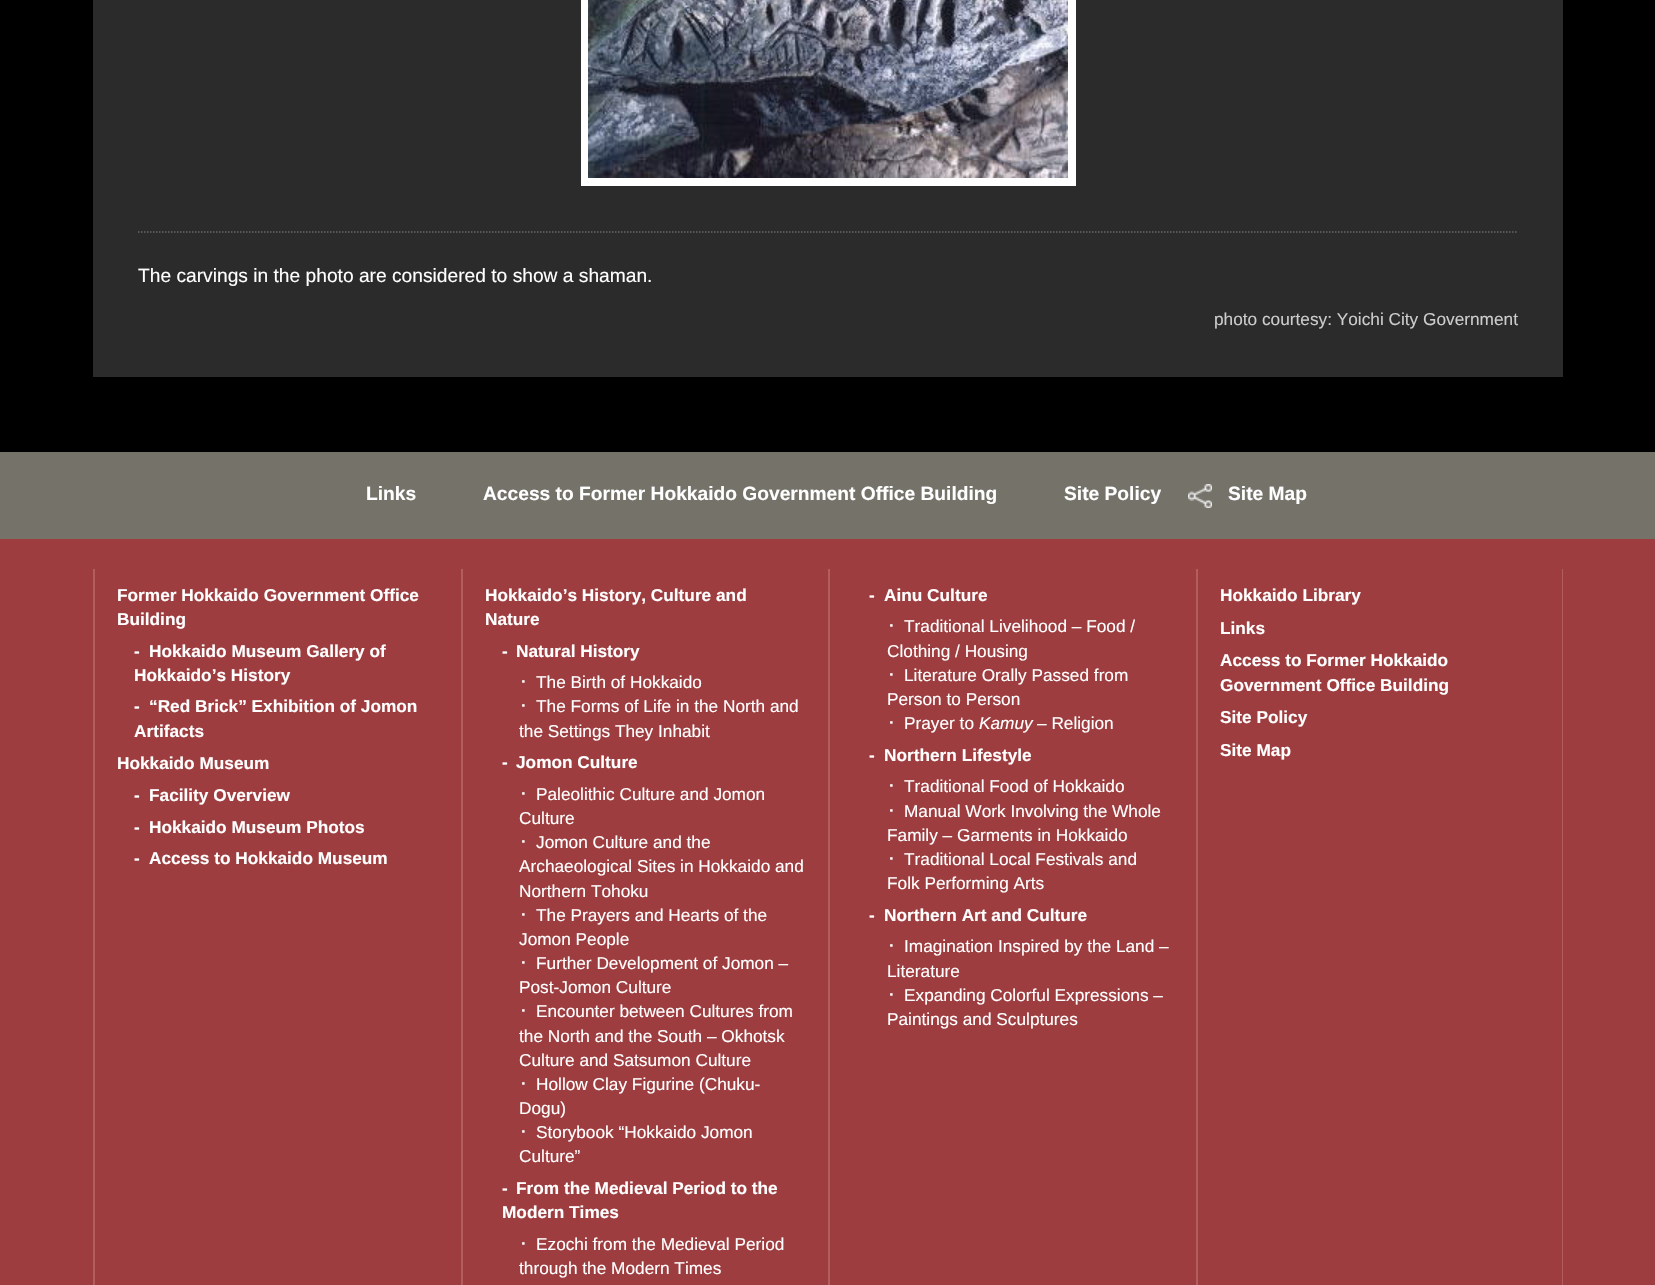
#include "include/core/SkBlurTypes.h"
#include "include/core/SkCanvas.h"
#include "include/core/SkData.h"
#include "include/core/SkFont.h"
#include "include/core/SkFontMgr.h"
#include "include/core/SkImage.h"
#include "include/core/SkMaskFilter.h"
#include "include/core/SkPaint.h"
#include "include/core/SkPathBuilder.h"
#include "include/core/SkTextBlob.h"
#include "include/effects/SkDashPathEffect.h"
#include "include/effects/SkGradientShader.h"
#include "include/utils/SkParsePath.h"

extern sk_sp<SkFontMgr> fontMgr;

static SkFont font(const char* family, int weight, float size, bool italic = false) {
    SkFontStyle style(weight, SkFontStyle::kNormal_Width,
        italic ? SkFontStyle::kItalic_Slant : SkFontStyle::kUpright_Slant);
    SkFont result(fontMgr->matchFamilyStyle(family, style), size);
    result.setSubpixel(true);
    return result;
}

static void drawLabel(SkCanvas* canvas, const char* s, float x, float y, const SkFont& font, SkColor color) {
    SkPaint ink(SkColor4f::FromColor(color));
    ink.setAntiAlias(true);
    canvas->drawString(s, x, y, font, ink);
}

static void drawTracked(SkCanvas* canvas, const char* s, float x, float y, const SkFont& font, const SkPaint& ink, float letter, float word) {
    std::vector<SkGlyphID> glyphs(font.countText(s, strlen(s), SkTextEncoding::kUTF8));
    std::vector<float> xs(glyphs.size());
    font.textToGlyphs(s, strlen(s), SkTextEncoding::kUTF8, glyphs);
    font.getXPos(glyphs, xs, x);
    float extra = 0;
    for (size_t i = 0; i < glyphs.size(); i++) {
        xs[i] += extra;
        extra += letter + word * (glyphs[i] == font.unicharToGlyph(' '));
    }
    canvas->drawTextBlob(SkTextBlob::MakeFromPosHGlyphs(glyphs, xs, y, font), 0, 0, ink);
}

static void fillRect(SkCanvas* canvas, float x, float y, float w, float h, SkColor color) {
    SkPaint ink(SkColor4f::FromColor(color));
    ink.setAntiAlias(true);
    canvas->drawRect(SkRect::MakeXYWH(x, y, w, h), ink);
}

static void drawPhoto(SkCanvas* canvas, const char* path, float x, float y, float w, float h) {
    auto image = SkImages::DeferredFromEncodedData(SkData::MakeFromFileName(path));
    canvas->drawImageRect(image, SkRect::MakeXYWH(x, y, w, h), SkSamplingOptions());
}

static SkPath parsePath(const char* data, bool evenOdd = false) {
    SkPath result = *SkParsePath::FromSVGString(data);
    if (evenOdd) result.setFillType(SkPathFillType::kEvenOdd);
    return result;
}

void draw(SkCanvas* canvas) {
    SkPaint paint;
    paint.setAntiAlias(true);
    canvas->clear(0xFF75726A);
    fillRect(canvas, 0, 0, 1655, 452, 0xFF000000);
    fillRect(canvas, 93, 0, 1470, 377, 0xFF2B2B2B);
    paint.setStroke(true);
    paint.setStrokeWidth(1.5f);
    paint.setColor(0xFF666666);
    paint.setPathEffect(SkDashPathEffect::Make({{1.5f, 1.5f}}, 0));
    canvas->drawPath(parsePath("M138 232H1518"), paint);
    paint.setPathEffect(nullptr);
    paint.setStrokeWidth(8);
    paint.setColor(0xFFFFFFFF);
    canvas->drawRect(SkRect::MakeXYWH(585, -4, 487, 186), paint);
    drawPhoto(canvas, "assets/img1.png", 588, 0, 480, 178);
    SkFont font1 = font("Liberation Sans", 400, 19.2f);
    drawLabel(canvas, "The carvings in the photo are considered to show a shaman.", 138, 282, font1, 0xFFFFFFFF);
    SkFont font2 = font("Liberation Sans", 400, 17.25f);
    drawLabel(canvas, "photo courtesy: Yoichi City Government", 1214, 325, font2, 0xFFCCCCCC);
    SkFont font3 = font("Liberation Sans", 700, 19.2f);
    drawLabel(canvas, "Links", 366, 500, font3, 0xFFFFFFFF);
    drawLabel(canvas, "Access to Former Hokkaido Government Office Building", 483, 500, font3, 0xFFFFFFFF);
    drawLabel(canvas, "Site Policy", 1064, 500, font3, 0xFFFFFFFF);
    drawPhoto(canvas, "assets/img2.png", 1188, 484, 24, 24);
    drawLabel(canvas, "Site Map", 1228, 500, font3, 0xFFFFFFFF);
    fillRect(canvas, 0, 539, 1655, 746, 0xFF9E3D3F);
    fillRect(canvas, 93, 569, 2, 716, 0xFFB45D5F);
    SkFont font4 = font("Liberation Sans", 700, 17.25f);
    drawLabel(canvas, "Former Hokkaido Government Office", 117, 601, font4, 0xFFFFFFFF);
    drawLabel(canvas, "Building", 117, 625, font4, 0xFFFFFFFF);
    paint.setStroke(false);
    drawTracked(canvas, "-", 134, 657, font4, paint, 9, 0);
    drawLabel(canvas, "Hokkaido Museum Gallery of", 149, 657, font4, 0xFFFFFFFF);
    drawLabel(canvas, "Hokkaido’s History", 134, 681, font4, 0xFFFFFFFF);
    drawTracked(canvas, "-", 134, 712, font4, paint, 9, 0);
    drawLabel(canvas, "“Red Brick” Exhibition of Jomon", 149, 712, font4, 0xFFFFFFFF);
    drawLabel(canvas, "Artifacts", 134, 737, font4, 0xFFFFFFFF);
    drawLabel(canvas, "Hokkaido Museum", 117, 769, font4, 0xFFFFFFFF);
    drawTracked(canvas, "-", 134, 801, font4, paint, 9, 0);
    drawLabel(canvas, "Facility Overview", 149, 801, font4, 0xFFFFFFFF);
    drawTracked(canvas, "-", 134, 833, font4, paint, 9, 0);
    drawLabel(canvas, "Hokkaido Museum Photos", 149, 833, font4, 0xFFFFFFFF);
    drawTracked(canvas, "-", 134, 864, font4, paint, 9, 0);
    drawLabel(canvas, "Access to Hokkaido Museum", 149, 864, font4, 0xFFFFFFFF);
    fillRect(canvas, 461, 569, 2, 716, 0xFFB45D5F);
    drawLabel(canvas, "Hokkaido’s History, Culture and", 485, 601, font4, 0xFFFFFFFF);
    drawLabel(canvas, "Nature", 485, 625, font4, 0xFFFFFFFF);
    drawTracked(canvas, "-", 502, 657, font4, paint, 9, 0);
    drawLabel(canvas, "Natural History", 516, 657, font4, 0xFFFFFFFF);
    SkFont font5 = font("IPAGothic", 400, 17.25f);
    drawTracked(canvas, "･", 519, 688, font5, paint, 9, 0);
    drawLabel(canvas, "The Birth of Hokkaido", 536, 688, font2, 0xFFFFFFFF);
    drawTracked(canvas, "･", 519, 712, font5, paint, 9, 0);
    drawLabel(canvas, "The Forms of Life in the North and", 536, 712, font2, 0xFFFFFFFF);
    drawLabel(canvas, "the Settings They Inhabit", 519, 737, font2, 0xFFFFFFFF);
    drawTracked(canvas, "-", 502, 768, font4, paint, 9, 0);
    drawLabel(canvas, "Jomon Culture", 516, 768, font4, 0xFFFFFFFF);
    drawTracked(canvas, "･", 519, 800, font5, paint, 9, 0);
    drawLabel(canvas, "Paleolithic Culture and Jomon", 536, 800, font2, 0xFFFFFFFF);
    drawLabel(canvas, "Culture", 519, 824, font2, 0xFFFFFFFF);
    drawTracked(canvas, "･", 519, 848, font5, paint, 9, 0);
    drawLabel(canvas, "Jomon Culture and the", 536, 848, font2, 0xFFFFFFFF);
    drawLabel(canvas, "Archaeological Sites in Hokkaido and", 519, 872, font2, 0xFFFFFFFF);
    drawLabel(canvas, "Northern Tohoku", 519, 897, font2, 0xFFFFFFFF);
    drawTracked(canvas, "･", 519, 921, font5, paint, 9, 0);
    drawLabel(canvas, "The Prayers and Hearts of the", 536, 921, font2, 0xFFFFFFFF);
    drawLabel(canvas, "Jomon People", 519, 945, font2, 0xFFFFFFFF);
    drawTracked(canvas, "･", 519, 969, font5, paint, 9, 0);
    drawLabel(canvas, "Further Development of Jomon –", 536, 969, font2, 0xFFFFFFFF);
    drawLabel(canvas, "Post-Jomon Culture", 519, 993, font2, 0xFFFFFFFF);
    drawTracked(canvas, "･", 519, 1017, font5, paint, 9, 0);
    drawLabel(canvas, "Encounter between Cultures from", 536, 1017, font2, 0xFFFFFFFF);
    drawLabel(canvas, "the North and the South – Okhotsk", 519, 1042, font2, 0xFFFFFFFF);
    drawLabel(canvas, "Culture and Satsumon Culture", 519, 1066, font2, 0xFFFFFFFF);
    drawTracked(canvas, "･", 519, 1090, font5, paint, 9, 0);
    drawLabel(canvas, "Hollow Clay Figurine (Chuku-", 536, 1090, font2, 0xFFFFFFFF);
    drawLabel(canvas, "Dogu)", 519, 1114, font2, 0xFFFFFFFF);
    drawTracked(canvas, "･", 519, 1138, font5, paint, 9, 0);
    drawLabel(canvas, "Storybook “Hokkaido Jomon", 536, 1138, font2, 0xFFFFFFFF);
    drawLabel(canvas, "Culture”", 519, 1162, font2, 0xFFFFFFFF);
    drawTracked(canvas, "-", 502, 1194, font4, paint, 9, 0);
    drawLabel(canvas, "From the Medieval Period to the", 516, 1194, font4, 0xFFFFFFFF);
    drawLabel(canvas, "Modern Times", 502, 1218, font4, 0xFFFFFFFF);
    drawTracked(canvas, "･", 519, 1250, font5, paint, 9, 0);
    drawLabel(canvas, "Ezochi from the Medieval Period", 536, 1250, font2, 0xFFFFFFFF);
    drawLabel(canvas, "through the Modern Times", 519, 1274, font2, 0xFFFFFFFF);
    fillRect(canvas, 828, 569, 2, 716, 0xFFB45D5F);
    drawTracked(canvas, "-", 869, 601, font4, paint, 9, 0);
    drawLabel(canvas, "Ainu Culture", 884, 601, font4, 0xFFFFFFFF);
    drawTracked(canvas, "･", 887, 632, font5, paint, 9, 0);
    drawLabel(canvas, "Traditional Livelihood – Food /", 904, 632, font2, 0xFFFFFFFF);
    drawLabel(canvas, "Clothing / Housing", 887, 657, font2, 0xFFFFFFFF);
    drawTracked(canvas, "･", 887, 681, font5, paint, 9, 0);
    drawLabel(canvas, "Literature Orally Passed from", 904, 681, font2, 0xFFFFFFFF);
    drawLabel(canvas, "Person to Person", 887, 705, font2, 0xFFFFFFFF);
    drawTracked(canvas, "･", 887, 729, font5, paint, 9, 0);
    drawLabel(canvas, "Prayer to", 904, 729, font2, 0xFFFFFFFF);
    SkFont font6 = font("Liberation Sans", 400, 17.25f, true);
    drawLabel(canvas, "Kamuy", 979, 729, font6, 0xFFFFFFFF);
    drawLabel(canvas, "– Religion", 1037, 729, font2, 0xFFFFFFFF);
    drawTracked(canvas, "-", 869, 761, font4, paint, 9, 0);
    drawLabel(canvas, "Northern Lifestyle", 884, 761, font4, 0xFFFFFFFF);
    drawTracked(canvas, "･", 887, 792, font5, paint, 9, 0);
    drawLabel(canvas, "Traditional Food of Hokkaido", 904, 792, font2, 0xFFFFFFFF);
    drawTracked(canvas, "･", 887, 817, font5, paint, 9, 0);
    drawLabel(canvas, "Manual Work Involving the Whole", 904, 817, font2, 0xFFFFFFFF);
    drawLabel(canvas, "Family – Garments in Hokkaido", 887, 841, font2, 0xFFFFFFFF);
    drawTracked(canvas, "･", 887, 865, font5, paint, 9, 0);
    drawLabel(canvas, "Traditional Local Festivals and", 904, 865, font2, 0xFFFFFFFF);
    drawLabel(canvas, "Folk Performing Arts", 887, 889, font2, 0xFFFFFFFF);
    drawTracked(canvas, "-", 869, 921, font4, paint, 9, 0);
    drawLabel(canvas, "Northern Art and Culture", 884, 921, font4, 0xFFFFFFFF);
    drawTracked(canvas, "･", 887, 952, font5, paint, 9, 0);
    drawLabel(canvas, "Imagination Inspired by the Land –", 904, 952, font2, 0xFFFFFFFF);
    drawLabel(canvas, "Literature", 887, 977, font2, 0xFFFFFFFF);
    drawTracked(canvas, "･", 887, 1001, font5, paint, 9, 0);
    drawLabel(canvas, "Expanding Colorful Expressions –", 904, 1001, font2, 0xFFFFFFFF);
    drawLabel(canvas, "Paintings and Sculptures", 887, 1025, font2, 0xFFFFFFFF);
    fillRect(canvas, 1562, 569, 1, 716, 0xFFB45D5F);
    fillRect(canvas, 1196, 569, 2, 716, 0xFFB45D5F);
    drawLabel(canvas, "Hokkaido Library", 1220, 601, font4, 0xFFFFFFFF);
    drawLabel(canvas, "Links", 1220, 634, font4, 0xFFFFFFFF);
    drawLabel(canvas, "Access to Former Hokkaido", 1220, 666, font4, 0xFFFFFFFF);
    drawLabel(canvas, "Government Office Building", 1220, 691, font4, 0xFFFFFFFF);
    drawLabel(canvas, "Site Policy", 1220, 723, font4, 0xFFFFFFFF);
    drawLabel(canvas, "Site Map", 1220, 756, font4, 0xFFFFFFFF);
}
